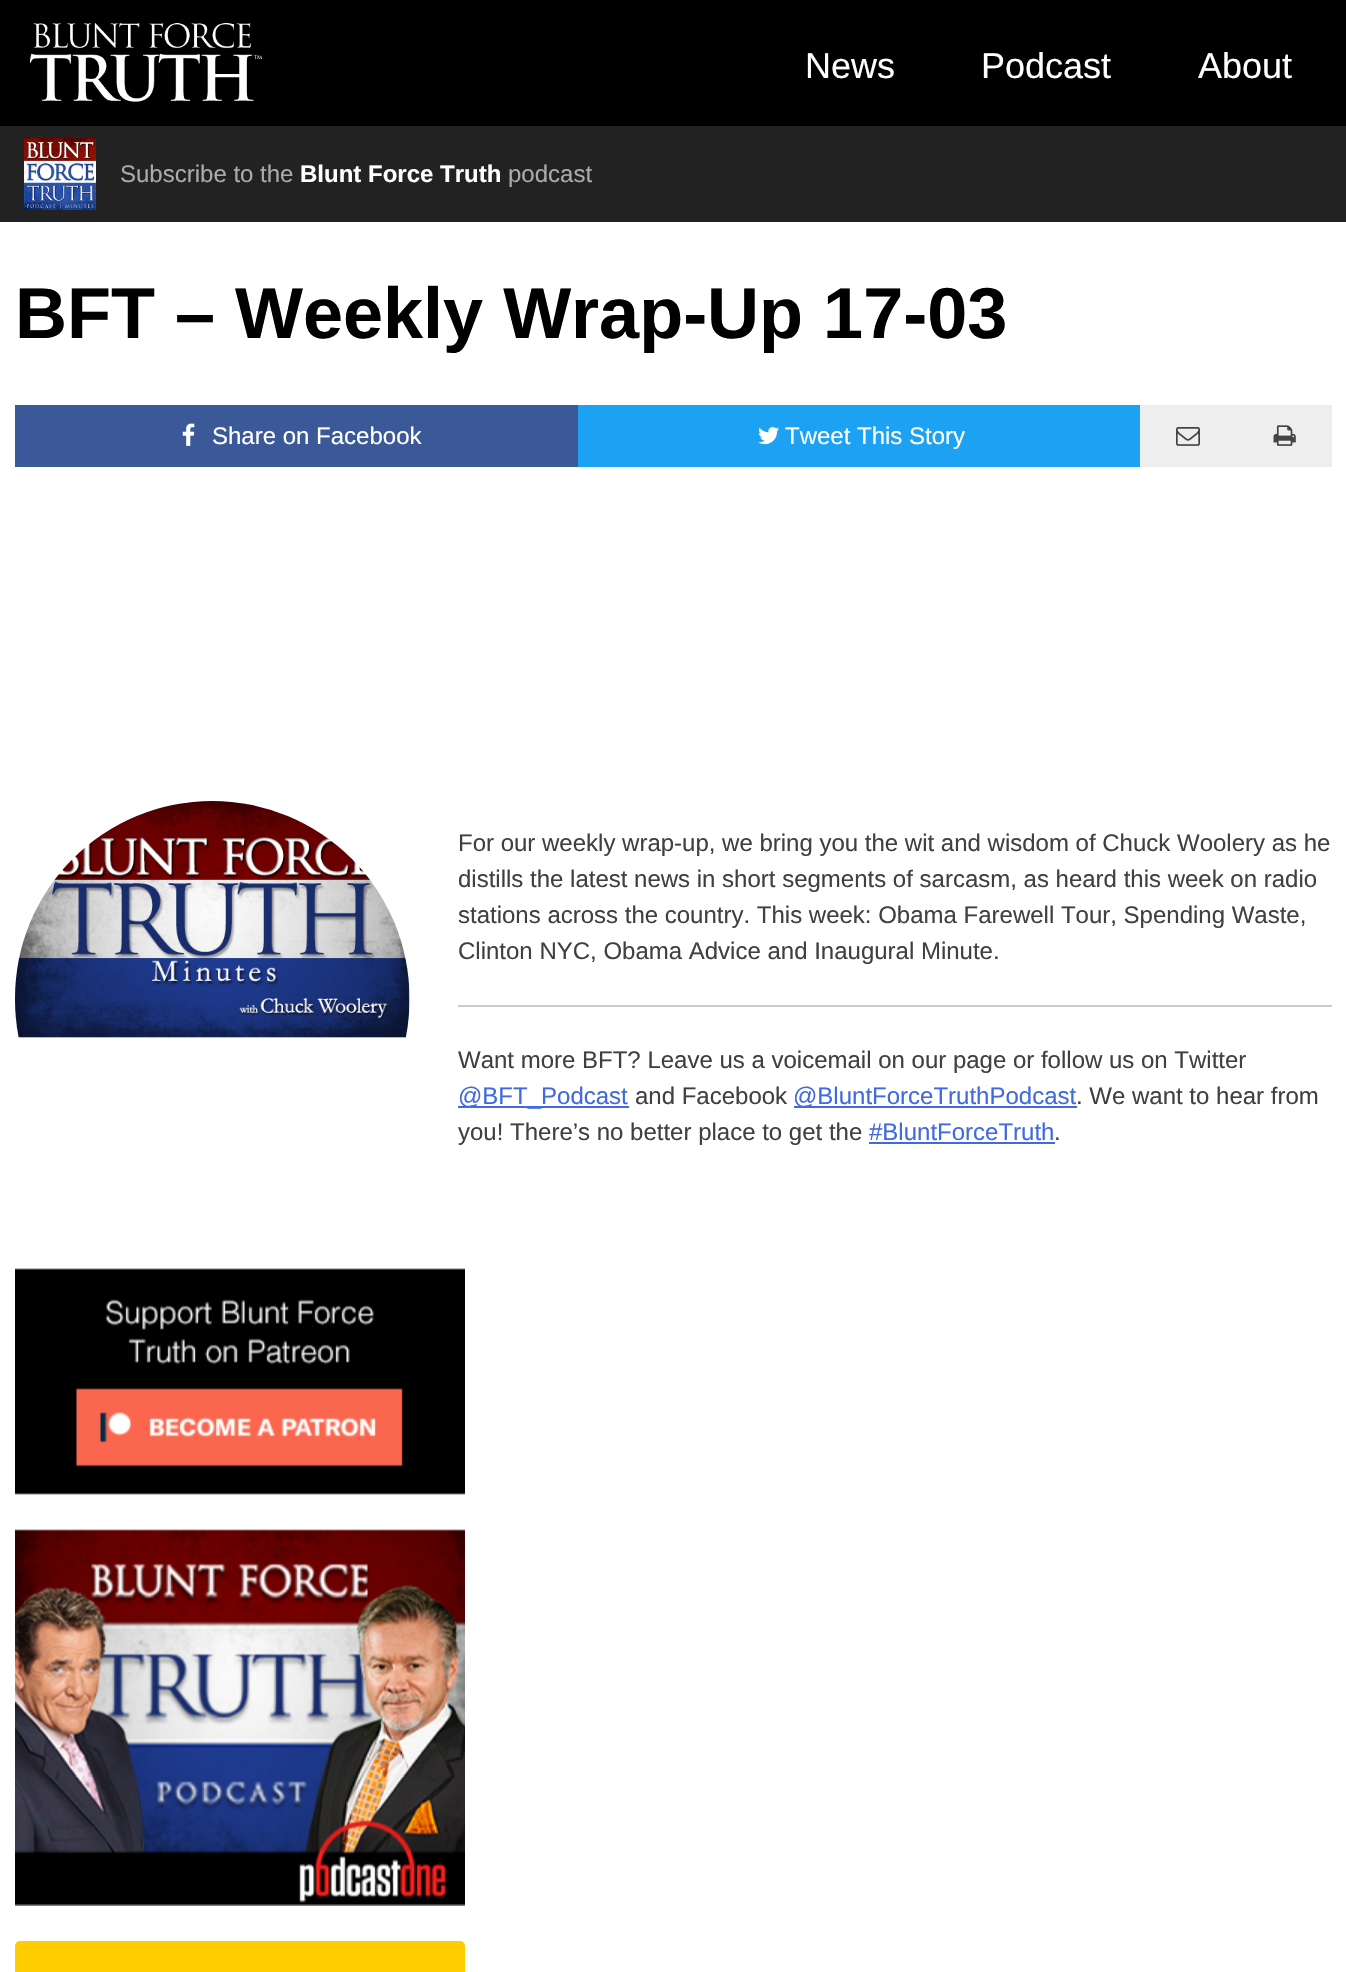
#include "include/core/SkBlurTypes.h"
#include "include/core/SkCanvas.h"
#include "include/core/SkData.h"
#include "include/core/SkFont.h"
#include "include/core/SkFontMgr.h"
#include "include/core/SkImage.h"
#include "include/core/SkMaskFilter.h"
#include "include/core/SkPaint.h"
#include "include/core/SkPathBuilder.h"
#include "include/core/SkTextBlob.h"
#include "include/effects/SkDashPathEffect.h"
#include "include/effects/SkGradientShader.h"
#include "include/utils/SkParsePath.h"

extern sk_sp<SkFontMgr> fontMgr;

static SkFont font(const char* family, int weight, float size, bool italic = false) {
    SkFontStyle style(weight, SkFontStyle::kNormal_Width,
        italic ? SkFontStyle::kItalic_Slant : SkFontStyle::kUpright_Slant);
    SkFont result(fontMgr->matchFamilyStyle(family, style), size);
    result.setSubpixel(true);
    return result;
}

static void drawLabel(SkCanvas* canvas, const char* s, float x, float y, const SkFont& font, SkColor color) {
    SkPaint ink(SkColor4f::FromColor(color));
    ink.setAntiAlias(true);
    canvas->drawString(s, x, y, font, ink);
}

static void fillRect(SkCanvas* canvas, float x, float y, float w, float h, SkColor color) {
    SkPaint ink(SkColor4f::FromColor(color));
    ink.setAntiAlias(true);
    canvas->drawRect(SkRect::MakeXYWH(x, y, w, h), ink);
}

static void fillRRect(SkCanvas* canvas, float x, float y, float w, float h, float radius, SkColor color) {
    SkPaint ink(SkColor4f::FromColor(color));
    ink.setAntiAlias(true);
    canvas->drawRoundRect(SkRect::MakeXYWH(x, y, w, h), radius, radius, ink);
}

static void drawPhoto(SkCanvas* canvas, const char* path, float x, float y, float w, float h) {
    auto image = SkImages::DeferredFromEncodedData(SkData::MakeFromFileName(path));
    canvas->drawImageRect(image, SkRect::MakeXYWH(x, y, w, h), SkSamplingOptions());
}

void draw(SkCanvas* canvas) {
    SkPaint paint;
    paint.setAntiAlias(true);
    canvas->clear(0xFFFFFFFF);
    fillRect(canvas, 0, 0, 1346, 126, 0xFF000000);
    drawPhoto(canvas, "assets/img1.png", 30, 23, 233, 79);
    SkFont font1 = font("Liberation Sans", 400, 36);
    drawLabel(canvas, "News", 805, 78, font1, 0xFFFFFFFF);
    drawLabel(canvas, "Podcast", 981, 78, font1, 0xFFFFFFFF);
    drawLabel(canvas, "About", 1198, 78, font1, 0xFFFFFFFF);
    fillRect(canvas, 0, 126, 1346, 96, 0xFF222222);
    drawPhoto(canvas, "assets/img2.png", 24, 138, 72, 72);
    SkFont font2 = font("Liberation Sans", 400, 24);
    drawLabel(canvas, "Subscribe to the", 120, 182, font2, 0xFFAAAAAA);
    SkFont font3 = font("Liberation Sans", 700, 24);
    drawLabel(canvas, "Blunt Force Truth", 300, 182, font3, 0xFFFFFFFF);
    drawLabel(canvas, "podcast", 508, 182, font2, 0xFFAAAAAA);
    SkFont font4 = font("Liberation Sans", 700, 72);
    drawLabel(canvas, "BFT – Weekly Wrap-Up 17-03", 15, 338, font4, 0xFF000000);
    fillRect(canvas, 1140, 405, 192, 62, 0xFFEEEEEE);
    drawPhoto(canvas, "assets/img3.png", 1176, 427, 24, 19);
    fillRect(canvas, 15, 405, 563, 62, 0xFF3B5998);
    drawPhoto(canvas, "assets/img4.png", 182, 423, 13, 23);
    drawLabel(canvas, "Share on Facebook", 212, 444, font2, 0xFFFFFFFF);
    fillRect(canvas, 578, 405, 562, 62, 0xFF1DA1F2);
    drawPhoto(canvas, "assets/img5.png", 758, 427, 21, 18);
    drawLabel(canvas, "Tweet This Story", 785, 444, font2, 0xFFFFFFFF);
    drawPhoto(canvas, "assets/img6.png", 1273, 425, 23, 21);
    drawPhoto(canvas, "assets/img7.png", 15, 801, 395, 237);
    drawLabel(canvas, "For our weekly wrap-up, we bring you the wit and wisdom of Chuck Woolery as he", 458, 851, font2, 0xFF404040);
    drawLabel(canvas, "distills the latest news in short segments of sarcasm, as heard this week on radio", 458, 887, font2, 0xFF404040);
    drawLabel(canvas, "stations across the country. This week: Obama Farewell Tour, Spending Waste,", 458, 923, font2, 0xFF404040);
    drawLabel(canvas, "Clinton NYC, Obama Advice and Inaugural Minute.", 458, 959, font2, 0xFF404040);
    fillRect(canvas, 458, 1005, 874, 2, 0xFFCCCCCC);
    drawLabel(canvas, "Want more BFT? Leave us a voicemail on our page or follow us on Twitter", 458, 1068, font2, 0xFF404040);
    fillRect(canvas, 458, 1106, 171, 2, 0xFF4169E1);
    drawLabel(canvas, "@BFT_Podcast", 458, 1104, font2, 0xFF4169E1);
    drawLabel(canvas, "and Facebook", 635, 1104, font2, 0xFF404040);
    fillRect(canvas, 794, 1106, 283, 2, 0xFF4169E1);
    drawLabel(canvas, "@BluntForceTruthPodcast", 793, 1104, font2, 0xFF4169E1);
    drawLabel(canvas, ". We want to hear from", 1076, 1104, font2, 0xFF404040);
    drawLabel(canvas, "you! There’s no better place to get the", 458, 1140, font2, 0xFF404040);
    drawLabel(canvas, "#BluntForceTruth", 869, 1140, font2, 0xFF4169E1);
    fillRect(canvas, 869, 1142, 186, 2, 0xFF4169E1);
    drawLabel(canvas, ".", 1054, 1140, font2, 0xFF404040);
    drawPhoto(canvas, "assets/img8.png", 15, 1268, 450, 227);
    drawPhoto(canvas, "assets/img9.png", 15, 1529, 450, 377);
    fillRRect(canvas, 15, 1941, 450, 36, 5, 0xFFFFCC00);
}
